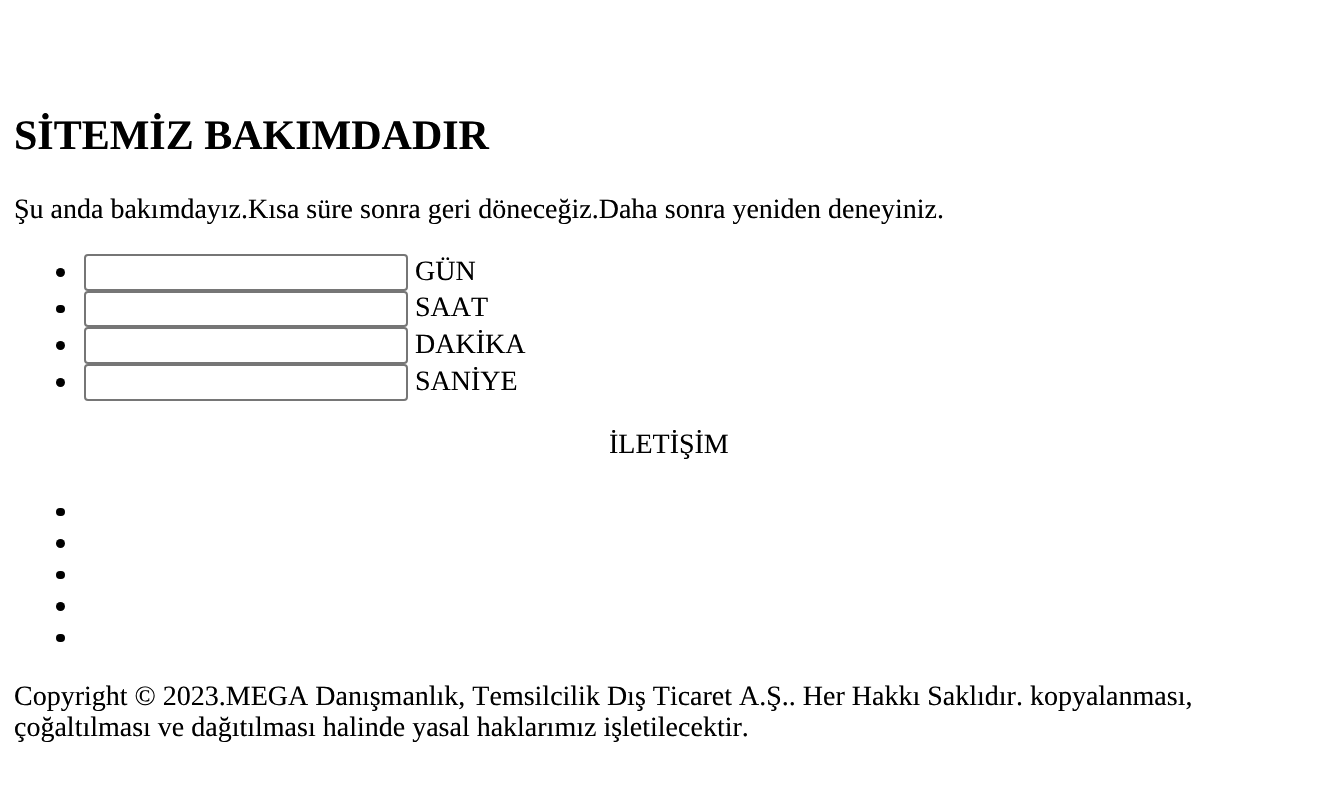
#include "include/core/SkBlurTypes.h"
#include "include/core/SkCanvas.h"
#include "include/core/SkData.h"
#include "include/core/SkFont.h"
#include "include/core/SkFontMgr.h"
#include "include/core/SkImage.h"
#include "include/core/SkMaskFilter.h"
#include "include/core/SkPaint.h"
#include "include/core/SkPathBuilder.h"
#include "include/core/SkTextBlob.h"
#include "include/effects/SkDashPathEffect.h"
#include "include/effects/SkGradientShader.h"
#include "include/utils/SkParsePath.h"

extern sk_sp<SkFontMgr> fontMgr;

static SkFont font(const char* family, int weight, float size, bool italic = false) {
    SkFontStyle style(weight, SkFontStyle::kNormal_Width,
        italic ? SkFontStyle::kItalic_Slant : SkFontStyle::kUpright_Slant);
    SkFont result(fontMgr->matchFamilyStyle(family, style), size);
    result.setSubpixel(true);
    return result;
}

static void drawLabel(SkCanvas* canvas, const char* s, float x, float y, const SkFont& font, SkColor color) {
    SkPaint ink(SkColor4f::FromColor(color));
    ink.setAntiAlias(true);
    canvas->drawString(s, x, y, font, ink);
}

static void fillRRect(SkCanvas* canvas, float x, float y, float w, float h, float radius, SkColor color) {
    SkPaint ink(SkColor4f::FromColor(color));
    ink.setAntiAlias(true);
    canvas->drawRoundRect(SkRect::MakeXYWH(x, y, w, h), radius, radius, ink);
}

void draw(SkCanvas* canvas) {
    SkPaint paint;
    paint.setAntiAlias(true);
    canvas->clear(0xFFFFFFFF);
    SkFont font1 = font("Liberation Serif", 700, 42);
    drawLabel(canvas, "SİTEMİZ BAKIMDADIR", 14, 149, font1, 0xFF000000);
    SkFont font2 = font("Liberation Serif", 400, 28);
    drawLabel(canvas, "Şu anda bakımdayız.Kısa süre sonra geri döneceğiz.Daha sonra yeniden deneyiniz.", 14, 218, font2, 0xFF000000);
    paint.setColor(0xFF000000);
    canvas->drawCircle(60.5f, 272.5f, 4.5f, paint);
    paint.setStroke(true);
    paint.setStrokeWidth(2);
    paint.setColor(0xFF767676);
    canvas->drawRoundRect(SkRect::MakeXYWH(85, 255, 322, 35), 3, 3, paint);
    drawLabel(canvas, "GÜN", 415, 280, font2, 0xFF000000);
    fillRRect(canvas, 56, 305, 9, 8, 4, 0xFF000000);
    canvas->drawRoundRect(SkRect::MakeXYWH(85, 292, 322, 34), 3, 3, paint);
    drawLabel(canvas, "SAAT", 415, 316, font2, 0xFF000000);
    paint.setStroke(false);
    paint.setColor(0xFF000000);
    canvas->drawCircle(60.5f, 345.5f, 4.5f, paint);
    paint.setStroke(true);
    paint.setColor(0xFF767676);
    canvas->drawRoundRect(SkRect::MakeXYWH(85, 328, 322, 35), 3, 3, paint);
    drawLabel(canvas, "DAKİKA", 415, 353, font2, 0xFF000000);
    paint.setStroke(false);
    paint.setColor(0xFF000000);
    canvas->drawCircle(60.5f, 382.5f, 4.5f, paint);
    paint.setStroke(true);
    paint.setColor(0xFF767676);
    canvas->drawRoundRect(SkRect::MakeXYWH(85, 365, 322, 35), 3, 3, paint);
    drawLabel(canvas, "SANİYE", 415, 390, font2, 0xFF000000);
    drawLabel(canvas, "İLETİŞİM", 609, 453, font2, 0xFF000000);
    fillRRect(canvas, 56, 508, 9, 8, 4, 0xFF000000);
    paint.setStroke(false);
    paint.setColor(0xFF000000);
    canvas->drawCircle(60.5f, 543.5f, 4.5f, paint);
    fillRRect(canvas, 56, 571, 9, 8, 4, 0xFF000000);
    canvas->drawCircle(60.5f, 606.5f, 4.5f, paint);
    fillRRect(canvas, 56, 634, 9, 8, 4, 0xFF000000);
    drawLabel(canvas, "Copyright © 2023.MEGA Danışmanlık, Temsilcilik Dış Ticaret A.Ş.. Her Hakkı Saklıdır. kopyalanması,", 14, 705, font2, 0xFF000000);
    drawLabel(canvas, "çoğaltılması ve dağıtılması halinde yasal haklarımız işletilecektir.", 14, 736, font2, 0xFF000000);
}
